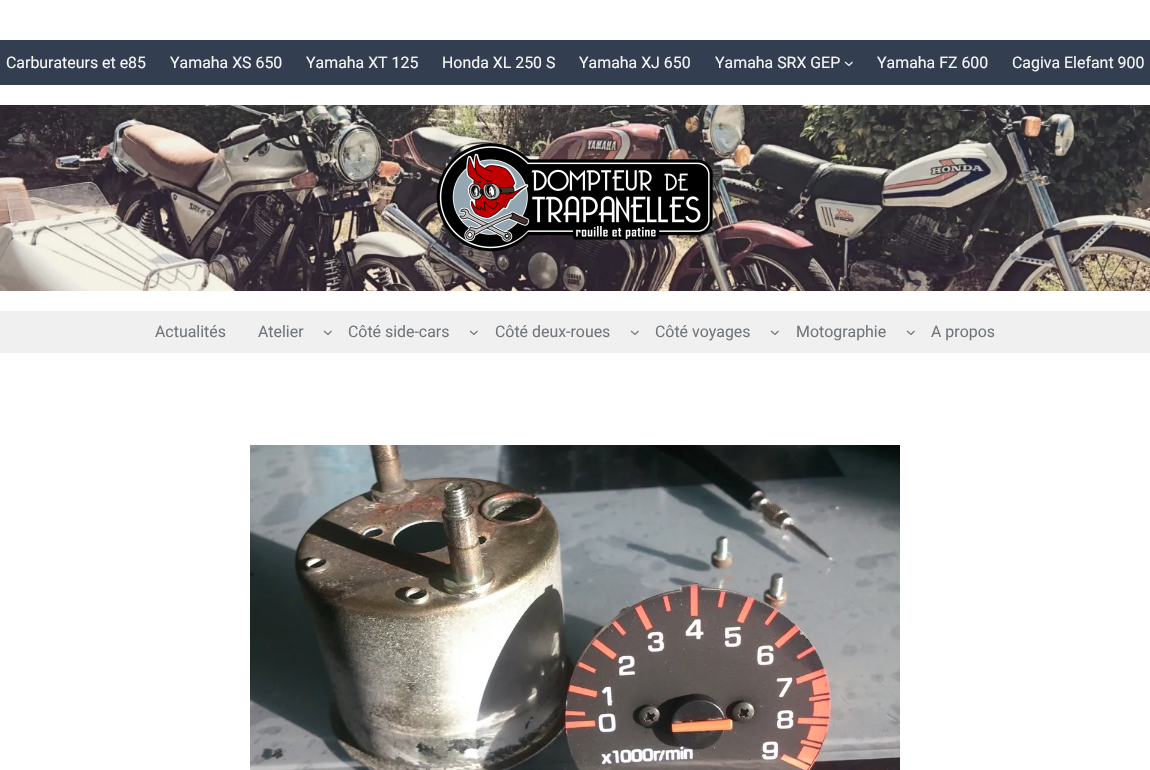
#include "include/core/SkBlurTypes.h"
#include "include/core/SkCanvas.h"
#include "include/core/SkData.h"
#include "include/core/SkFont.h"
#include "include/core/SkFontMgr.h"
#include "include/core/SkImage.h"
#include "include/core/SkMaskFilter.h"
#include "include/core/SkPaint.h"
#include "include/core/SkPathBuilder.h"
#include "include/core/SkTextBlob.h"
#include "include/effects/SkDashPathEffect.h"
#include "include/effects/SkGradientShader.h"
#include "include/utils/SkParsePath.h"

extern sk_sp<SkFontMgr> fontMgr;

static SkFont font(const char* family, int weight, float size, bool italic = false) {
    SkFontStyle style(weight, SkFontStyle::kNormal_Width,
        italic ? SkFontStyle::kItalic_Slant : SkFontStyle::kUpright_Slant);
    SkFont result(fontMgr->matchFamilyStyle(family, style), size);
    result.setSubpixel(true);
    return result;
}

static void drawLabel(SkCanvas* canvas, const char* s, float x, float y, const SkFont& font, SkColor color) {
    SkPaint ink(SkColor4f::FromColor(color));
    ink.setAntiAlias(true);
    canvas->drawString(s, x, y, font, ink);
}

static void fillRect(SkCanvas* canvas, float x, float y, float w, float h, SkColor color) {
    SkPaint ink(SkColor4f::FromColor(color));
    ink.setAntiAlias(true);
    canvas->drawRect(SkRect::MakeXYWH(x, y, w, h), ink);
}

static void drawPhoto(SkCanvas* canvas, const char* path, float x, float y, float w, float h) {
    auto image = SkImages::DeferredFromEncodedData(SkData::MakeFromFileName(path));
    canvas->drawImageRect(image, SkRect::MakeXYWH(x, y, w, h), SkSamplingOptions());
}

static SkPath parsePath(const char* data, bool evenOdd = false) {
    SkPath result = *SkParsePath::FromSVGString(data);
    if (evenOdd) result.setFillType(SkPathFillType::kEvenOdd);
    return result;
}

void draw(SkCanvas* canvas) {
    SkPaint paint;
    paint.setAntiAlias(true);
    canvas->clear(0xFFFFFFFF);
    fillRect(canvas, 0, 40, 1150, 45, 0xFF333E50);
    SkFont font1 = font("Roboto", 400, 15.9f);
    drawLabel(canvas, "Carburateurs et e85", 6, 68, font1, 0xFFF6F6F6);
    drawLabel(canvas, "Yamaha XS 650", 170, 68, font1, 0xFFF6F6F6);
    drawLabel(canvas, "Yamaha XT 125", 306, 68, font1, 0xFFF6F6F6);
    drawLabel(canvas, "Honda XL 250 S", 442, 68, font1, 0xFFF6F6F6);
    drawLabel(canvas, "Yamaha XJ 650", 579, 68, font1, 0xFFF6F6F6);
    drawLabel(canvas, "Yamaha SRX GEP", 715, 68, font1, 0xFFF6F6F6);
    paint.setStroke(true);
    paint.setStrokeWidth(1.2f);
    paint.setColor(0xFFF6F6F6);
    canvas->drawPath(parsePath("M845 62L849 65.5L852.5 62"), paint);
    drawLabel(canvas, "Yamaha FZ 600", 877, 68, font1, 0xFFF6F6F6);
    drawLabel(canvas, "Cagiva Elefant 900", 1012, 68, font1, 0xFFF6F6F6);
    drawPhoto(canvas, "assets/img1.png", 0, 105, 1150, 186);
    drawPhoto(canvas, "assets/img2.png", 436, 143, 277, 109);
    fillRect(canvas, 0, 311, 1150, 42, 0xFFF0F0F0);
    drawLabel(canvas, "Actualités", 155, 337, font1, 0xFF70767B);
    drawLabel(canvas, "Atelier", 258, 337, font1, 0xFF70767B);
    paint.setColor(0xFF70767B);
    canvas->drawPath(parsePath("M324 331L328 334.5L331.5 331"), paint);
    drawLabel(canvas, "Côté side-cars", 348, 337, font1, 0xFF70767B);
    canvas->drawPath(parsePath("M470 331L474 334.5L477.5 331"), paint);
    drawLabel(canvas, "Côté deux-roues", 495, 337, font1, 0xFF70767B);
    canvas->drawPath(parsePath("M631 331L635 334.5L638.5 331"), paint);
    drawLabel(canvas, "Côté voyages", 655, 337, font1, 0xFF70767B);
    canvas->drawPath(parsePath("M771 331L775 334.5L778.5 331"), paint);
    drawLabel(canvas, "Motographie", 796, 337, font1, 0xFF70767B);
    canvas->drawPath(parsePath("M907 331L911 334.5L914.5 331"), paint);
    drawLabel(canvas, "A propos", 931, 337, font1, 0xFF70767B);
    drawPhoto(canvas, "assets/img3.png", 250, 445, 650, 325);
}
